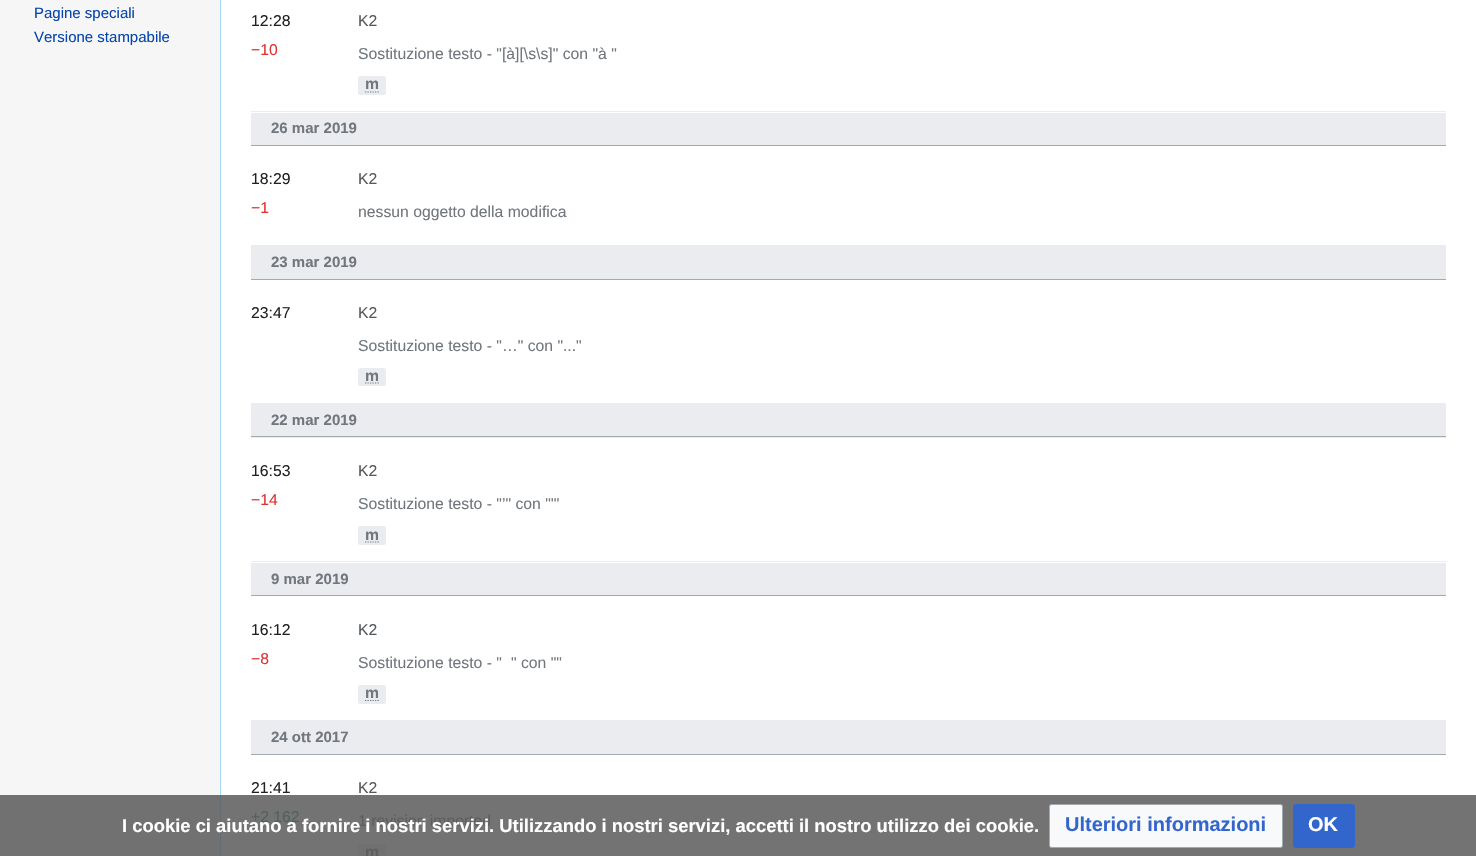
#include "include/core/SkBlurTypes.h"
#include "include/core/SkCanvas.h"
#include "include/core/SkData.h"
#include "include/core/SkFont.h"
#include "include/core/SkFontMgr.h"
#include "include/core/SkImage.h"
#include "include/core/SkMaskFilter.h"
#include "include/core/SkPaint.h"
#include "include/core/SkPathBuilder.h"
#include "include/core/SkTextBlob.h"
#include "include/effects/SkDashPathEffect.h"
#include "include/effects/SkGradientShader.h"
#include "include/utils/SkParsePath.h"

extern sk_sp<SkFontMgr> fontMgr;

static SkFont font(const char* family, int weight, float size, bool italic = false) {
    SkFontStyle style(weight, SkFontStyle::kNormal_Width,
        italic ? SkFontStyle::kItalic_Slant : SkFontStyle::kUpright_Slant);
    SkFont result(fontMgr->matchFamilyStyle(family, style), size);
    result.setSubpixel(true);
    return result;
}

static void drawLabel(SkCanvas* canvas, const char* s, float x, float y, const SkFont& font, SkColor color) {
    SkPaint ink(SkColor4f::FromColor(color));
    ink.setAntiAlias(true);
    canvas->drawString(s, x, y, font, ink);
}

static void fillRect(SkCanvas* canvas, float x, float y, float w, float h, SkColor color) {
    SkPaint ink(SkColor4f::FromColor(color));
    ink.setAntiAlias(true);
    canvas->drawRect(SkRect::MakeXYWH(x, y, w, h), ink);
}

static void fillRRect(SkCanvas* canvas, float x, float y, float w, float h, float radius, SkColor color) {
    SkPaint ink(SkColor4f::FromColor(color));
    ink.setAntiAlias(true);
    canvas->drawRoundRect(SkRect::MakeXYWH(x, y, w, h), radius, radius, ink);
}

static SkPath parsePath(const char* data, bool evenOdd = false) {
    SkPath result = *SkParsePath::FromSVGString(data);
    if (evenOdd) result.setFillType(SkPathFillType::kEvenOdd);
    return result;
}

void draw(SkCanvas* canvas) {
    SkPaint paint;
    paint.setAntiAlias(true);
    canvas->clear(0xFFF6F6F6);
    fillRect(canvas, 0, 795, 220, 61, 0xFF717171);
    SkFont font1 = font("Liberation Sans", 400, 15);
    drawLabel(canvas, "Pagine speciali", 34, 18, font1, 0xFF0645AD);
    drawLabel(canvas, "Versione stampabile", 34, 42, font1, 0xFF0645AD);
    fillRect(canvas, 221, 0, 1255, 795, 0xFFFFFFFF);
    fillRect(canvas, 221, 795, 1255, 61, 0xFF737373);
    fillRect(canvas, 220, 0, 1, 795, 0xFFA7D7F9);
    fillRect(canvas, 220, 795, 1, 61, 0xFF666D72);
    fillRect(canvas, 251, 111, 1195, 1, 0xFFEAECF0);
    SkFont font2 = font("Liberation Sans", 400, 15.75f);
    drawLabel(canvas, "12:28", 251, 26, font2, 0xFF202122);
    drawLabel(canvas, "−10", 251, 55, font2, 0xFFDD3333);
    drawLabel(canvas, "K2", 358, 26, font2, 0xFF54595D);
    drawLabel(canvas, "Sostituzione testo - \"[à][\\s\\s]\" con \"à \"", 358, 59, font2, 0xFF72777D);
    fillRRect(canvas, 358, 76, 28, 19, 2.5f, 0xFFEAECF0);
    SkFont font3 = font("Liberation Sans", 700, 15.75f);
    drawLabel(canvas, "m", 365, 89, font3, 0xFF72777D);
    paint.setStroke(true);
    paint.setStrokeWidth(1.2f);
    paint.setColor(0xFF72777D);
    paint.setPathEffect(SkDashPathEffect::Make({{1.25f, 1.25f}}, 0));
    canvas->drawPath(parsePath("M365 92H379"), paint);
    paint.setPathEffect(nullptr);
    fillRect(canvas, 251, 113, 1195, 32, 0xFFEAECF0);
    fillRect(canvas, 251, 145, 1195, 1, 0xFFA2A9B1);
    SkFont font4 = font("Liberation Sans", 700, 15);
    drawLabel(canvas, "26 mar 2019", 271, 133, font4, 0xFF72777D);
    drawLabel(canvas, "18:29", 251, 184, font2, 0xFF202122);
    drawLabel(canvas, "−1", 251, 213, font2, 0xFFDD3333);
    drawLabel(canvas, "K2", 358, 184, font2, 0xFF54595D);
    drawLabel(canvas, "nessun oggetto della modifica", 358, 217, font2, 0xFF72777D);
    fillRect(canvas, 251, 245, 1195, 34, 0xFFEAECF0);
    fillRect(canvas, 251, 279, 1195, 1, 0xFFA2A9B1);
    drawLabel(canvas, "23 mar 2019", 271, 267, font4, 0xFF72777D);
    drawLabel(canvas, "23:47", 251, 318, font2, 0xFF202122);
    drawLabel(canvas, "K2", 358, 318, font2, 0xFF54595D);
    drawLabel(canvas, "Sostituzione testo - \"…\" con \"...\"", 358, 351, font2, 0xFF72777D);
    fillRRect(canvas, 358, 368, 28, 18, 2.5f, 0xFFEAECF0);
    drawLabel(canvas, "m", 365, 381, font3, 0xFF72777D);
    paint.setPathEffect(SkDashPathEffect::Make({{1.25f, 1.25f}}, 0));
    canvas->drawPath(parsePath("M365 383H379"), paint);
    paint.setPathEffect(nullptr);
    fillRect(canvas, 251, 403, 1195, 35, 0xFFEAECF0);
    fillRect(canvas, 251, 436, 1195, 1, 0xFFA2A9B1);
    drawLabel(canvas, "22 mar 2019", 271, 425, font4, 0xFF72777D);
    fillRect(canvas, 251, 561, 1195, 1, 0xFFEAECF0);
    drawLabel(canvas, "16:53", 251, 476, font2, 0xFF202122);
    drawLabel(canvas, "−14", 251, 505, font2, 0xFFDD3333);
    drawLabel(canvas, "K2", 358, 476, font2, 0xFF54595D);
    drawLabel(canvas, "Sostituzione testo - \"’\" con \"'\"", 358, 509, font2, 0xFF72777D);
    fillRRect(canvas, 358, 526, 28, 19, 2.5f, 0xFFEAECF0);
    drawLabel(canvas, "m", 365, 540, font3, 0xFF72777D);
    paint.setPathEffect(SkDashPathEffect::Make({{1.25f, 1.25f}}, 0));
    canvas->drawPath(parsePath("M365 542H379"), paint);
    paint.setPathEffect(nullptr);
    fillRect(canvas, 251, 563, 1195, 32, 0xFFEAECF0);
    fillRect(canvas, 251, 595, 1195, 1, 0xFFA2A9B1);
    drawLabel(canvas, "9 mar 2019", 271, 584, font4, 0xFF72777D);
    drawLabel(canvas, "16:12", 251, 635, font2, 0xFF202122);
    drawLabel(canvas, "−8", 251, 664, font2, 0xFFDD3333);
    drawLabel(canvas, "K2", 358, 635, font2, 0xFF54595D);
    drawLabel(canvas, "Sostituzione testo - \"", 358, 668, font2, 0xFF72777D);
    drawLabel(canvas, "\" con \"\"", 511, 668, font2, 0xFF72777D);
    fillRRect(canvas, 358, 685, 28, 19, 2.5f, 0xFFEAECF0);
    drawLabel(canvas, "m", 365, 698, font3, 0xFF72777D);
    paint.setPathEffect(SkDashPathEffect::Make({{1.25f, 1.25f}}, 0));
    canvas->drawPath(parsePath("M365 700.5H379"), paint);
    paint.setPathEffect(nullptr);
    fillRect(canvas, 251, 720, 1195, 34, 0xFFEAECF0);
    fillRect(canvas, 251, 754, 1195, 1, 0xFFA2A9B1);
    drawLabel(canvas, "24 ott 2017", 271, 742, font4, 0xFF72777D);
    drawLabel(canvas, "21:41", 251, 793, font2, 0xFF202122);
    drawLabel(canvas, "+2 162", 251, 822, font2, 0xFF50615D);
    drawLabel(canvas, "K2", 358, 793, font2, 0xFF54595D);
    drawLabel(canvas, "1 revision imported", 358, 826, font2, 0xFF5E5E5F);
    fillRRect(canvas, 358, 844, 28, 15, 2.5f, 0xFF707071);
    drawLabel(canvas, "m", 365, 857, font3, 0xFF5E5E5F);
    SkFont font5 = font("Liberation Sans", 700, 18.4f);
    drawLabel(canvas, "I cookie ci aiutano a fornire i nostri servizi. Utilizzando i nostri servizi, accetti il nostro utilizzo dei cookie.", 122, 832, font5, 0xFFFFFFFF);
    paint.setStroke(false);
    paint.setColor(0xFFF8F9FA);
    canvas->drawRoundRect(SkRect::MakeXYWH(1049.5f, 804.5f, 233, 43), 2, 2, paint);
    paint.setStroke(true);
    paint.setStrokeWidth(1);
    paint.setColor(0xFFA2A9B1);
    canvas->drawRoundRect(SkRect::MakeXYWH(1049.5f, 804.5f, 233, 43), 2, 2, paint);
    SkFont font6 = font("Liberation Sans", 700, 20);
    drawLabel(canvas, "Ulteriori informazioni", 1065, 831, font6, 0xFF3366CC);
    paint.setStroke(false);
    paint.setColor(0xFF3366CC);
    canvas->drawRoundRect(SkRect::MakeXYWH(1293.5f, 804.5f, 61, 43), 2, 2, paint);
    paint.setStroke(true);
    canvas->drawRoundRect(SkRect::MakeXYWH(1293.5f, 804.5f, 61, 43), 2, 2, paint);
    drawLabel(canvas, "OK", 1308, 831, font6, 0xFFFFFFFF);
}
